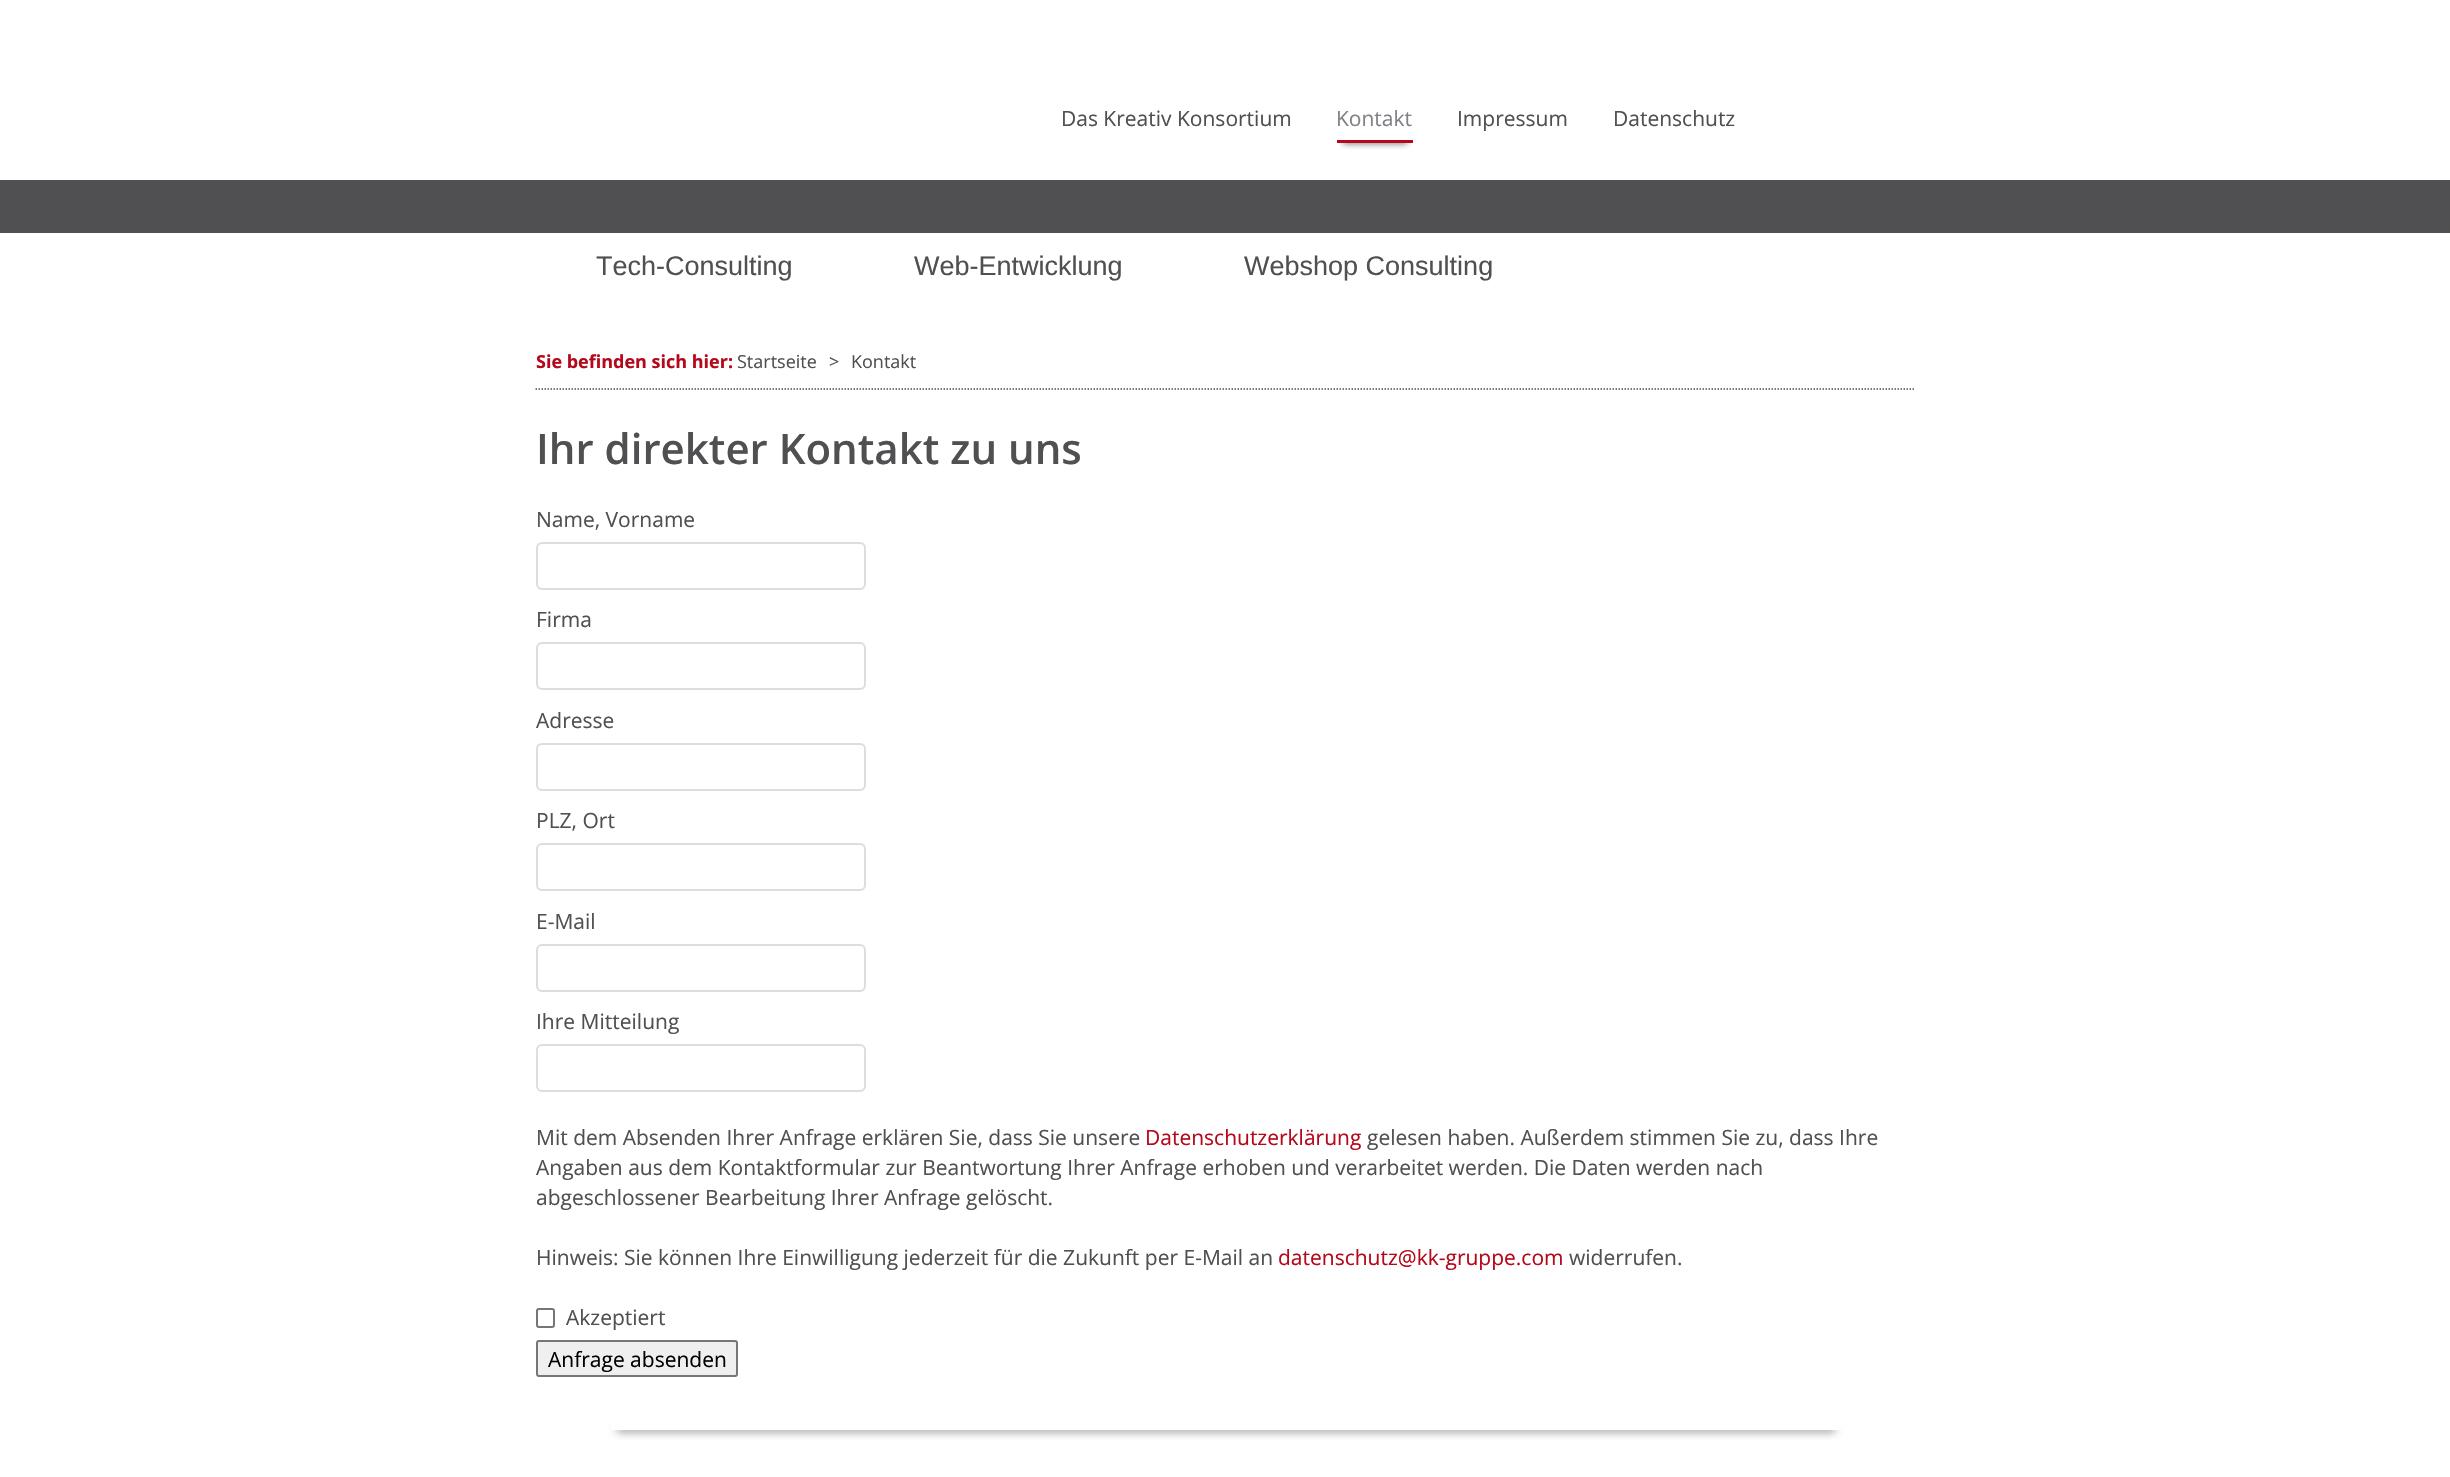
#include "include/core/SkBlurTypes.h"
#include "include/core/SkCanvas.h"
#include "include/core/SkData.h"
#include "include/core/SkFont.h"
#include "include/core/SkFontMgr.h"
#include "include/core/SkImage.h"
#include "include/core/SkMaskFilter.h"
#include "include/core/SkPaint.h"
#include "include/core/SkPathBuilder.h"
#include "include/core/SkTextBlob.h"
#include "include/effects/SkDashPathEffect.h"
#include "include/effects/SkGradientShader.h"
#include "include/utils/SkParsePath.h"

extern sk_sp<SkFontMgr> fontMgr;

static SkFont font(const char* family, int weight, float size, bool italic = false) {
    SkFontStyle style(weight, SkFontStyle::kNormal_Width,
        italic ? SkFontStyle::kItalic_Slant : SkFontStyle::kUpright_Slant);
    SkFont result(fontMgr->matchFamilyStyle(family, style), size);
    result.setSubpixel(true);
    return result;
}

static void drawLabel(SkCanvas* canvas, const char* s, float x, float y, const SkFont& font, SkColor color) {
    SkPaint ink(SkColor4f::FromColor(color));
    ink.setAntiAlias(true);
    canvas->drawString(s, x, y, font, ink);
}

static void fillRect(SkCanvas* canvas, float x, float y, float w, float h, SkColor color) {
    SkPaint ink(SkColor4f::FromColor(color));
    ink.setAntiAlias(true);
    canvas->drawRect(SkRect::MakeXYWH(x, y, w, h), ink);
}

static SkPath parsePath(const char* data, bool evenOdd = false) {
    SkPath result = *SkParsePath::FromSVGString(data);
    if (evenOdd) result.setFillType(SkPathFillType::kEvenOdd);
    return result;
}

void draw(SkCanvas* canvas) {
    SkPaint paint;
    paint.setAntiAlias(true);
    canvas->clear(0xFFFFFFFF);
    SkFont font1 = font("Open Sans", 400, 21);
    drawLabel(canvas, "Das Kreativ Konsortium", 1061, 126, font1, 0xFF505052);
    canvas->save();
    canvas->clipRect(SkRect::MakeXYWH(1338, 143, 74, 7));
    paint.setColor(0xFF808285);
    paint.setMaskFilter(SkMaskFilter::MakeBlur(kNormal_SkBlurStyle, 3));
    canvas->drawRect(SkRect::MakeXYWH(1343, 111, 64, 33), paint);
    paint.setMaskFilter(nullptr);
    canvas->restore();
    fillRect(canvas, 1337, 140, 76, 3, 0xFFB5091B);
    drawLabel(canvas, "Kontakt", 1336, 126, font1, 0xFF808285);
    drawLabel(canvas, "Impressum", 1457, 126, font1, 0xFF505052);
    drawLabel(canvas, "Datenschutz", 1613, 126, font1, 0xFF505052);
    SkFont font2 = font("Liberation Sans", 400, 27);
    drawLabel(canvas, "Tech-Consulting", 596, 275, font2, 0xFF505052);
    drawLabel(canvas, "Web-Entwicklung", 914, 275, font2, 0xFF505052);
    drawLabel(canvas, "Webshop Consulting", 1244, 275, font2, 0xFF505052);
    fillRect(canvas, 0, 180, 2450, 53, 0xFF505052);
    paint.setStroke(true);
    paint.setStrokeWidth(1.5f);
    paint.setColor(0xFF505052);
    paint.setPathEffect(SkDashPathEffect::Make({{1.5f, 1.5f}}, 0));
    canvas->drawPath(parsePath("M535.5 389H1915.5"), paint);
    paint.setPathEffect(nullptr);
    SkFont font3 = font("Open Sans", 700, 18);
    drawLabel(canvas, "Sie befinden sich hier:", 536, 368, font3, 0xFFB5091B);
    SkFont font4 = font("Open Sans", 400, 18);
    drawLabel(canvas, "Startseite", 737, 368, font4, 0xFF505052);
    drawLabel(canvas, ">", 829, 368, font4, 0xFF505052);
    drawLabel(canvas, "Kontakt", 851, 368, font4, 0xFF505052);
    SkFont font5 = font("Open Sans", 600, 42);
    drawLabel(canvas, "Ihr direkter Kontakt zu uns", 536, 464, font5, 0xFF505052);
    drawLabel(canvas, "Name, Vorname", 536, 527, font1, 0xFF505052);
    paint.setStrokeWidth(2);
    paint.setColor(0xFFDDDDDD);
    canvas->drawRoundRect(SkRect::MakeXYWH(537, 543, 328, 46), 5, 5, paint);
    drawLabel(canvas, "Firma", 536, 627, font1, 0xFF505052);
    canvas->drawRoundRect(SkRect::MakeXYWH(537, 643, 328, 46), 5, 5, paint);
    drawLabel(canvas, "Adresse", 536, 728, font1, 0xFF505052);
    canvas->drawRoundRect(SkRect::MakeXYWH(537, 744, 328, 46), 5, 5, paint);
    drawLabel(canvas, "PLZ, Ort", 536, 828, font1, 0xFF505052);
    canvas->drawRoundRect(SkRect::MakeXYWH(537, 844, 328, 46), 5, 5, paint);
    drawLabel(canvas, "E-Mail", 536, 929, font1, 0xFF505052);
    canvas->drawRoundRect(SkRect::MakeXYWH(537, 945, 328, 46), 5, 5, paint);
    drawLabel(canvas, "Ihre Mitteilung", 536, 1029, font1, 0xFF505052);
    canvas->drawRoundRect(SkRect::MakeXYWH(537, 1045, 328, 46), 5, 5, paint);
    drawLabel(canvas, "Mit dem Absenden Ihrer Anfrage erklären Sie, dass Sie unsere", 536, 1145, font1, 0xFF505052);
    drawLabel(canvas, "Datenschutzerklärung", 1145, 1145, font1, 0xFFB5091B);
    drawLabel(canvas, "gelesen haben. Außerdem stimmen Sie zu, dass Ihre", 1367, 1145, font1, 0xFF505052);
    drawLabel(canvas, "Angaben aus dem Kontaktformular zur Beantwortung Ihrer Anfrage erhoben und verarbeitet werden. Die Daten werden nach", 536, 1175, font1, 0xFF505052);
    drawLabel(canvas, "abgeschlossener Bearbeitung Ihrer Anfrage gelöscht.", 536, 1205, font1, 0xFF505052);
    drawLabel(canvas, "Hinweis: Sie können Ihre Einwilligung jederzeit für die Zukunft per E-Mail an", 536, 1265, font1, 0xFF505052);
    drawLabel(canvas, "datenschutz@kk-gruppe.com", 1278, 1265, font1, 0xFFB5091B);
    drawLabel(canvas, "widerrufen.", 1569, 1265, font1, 0xFF505052);
    paint.setColor(0xFF767676);
    canvas->drawRoundRect(SkRect::MakeXYWH(537, 1309, 17, 18), 2, 2, paint);
    drawLabel(canvas, "Akzeptiert", 566, 1325, font1, 0xFF505052);
    paint.setStroke(false);
    paint.setColor(0xFFEFEFEF);
    canvas->drawRoundRect(SkRect::MakeXYWH(537, 1341, 200, 35), 2, 2, paint);
    paint.setStroke(true);
    paint.setColor(0xFF767676);
    canvas->drawRoundRect(SkRect::MakeXYWH(537, 1341, 200, 35), 2, 2, paint);
    drawLabel(canvas, "Anfrage absenden", 548, 1367, font1, 0xFF000000);
    canvas->save();
    canvas->clipPath(parsePath("M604 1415H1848V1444H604ZM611 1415H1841V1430H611Z", true), true);
    paint.setStroke(false);
    paint.setColor(0xFF333333);
    paint.setMaskFilter(SkMaskFilter::MakeBlur(kNormal_SkBlurStyle, 4));
    canvas->drawRect(SkRect::MakeXYWH(617, 1428, 1218, 3), paint);
    paint.setMaskFilter(nullptr);
    canvas->restore();
}
